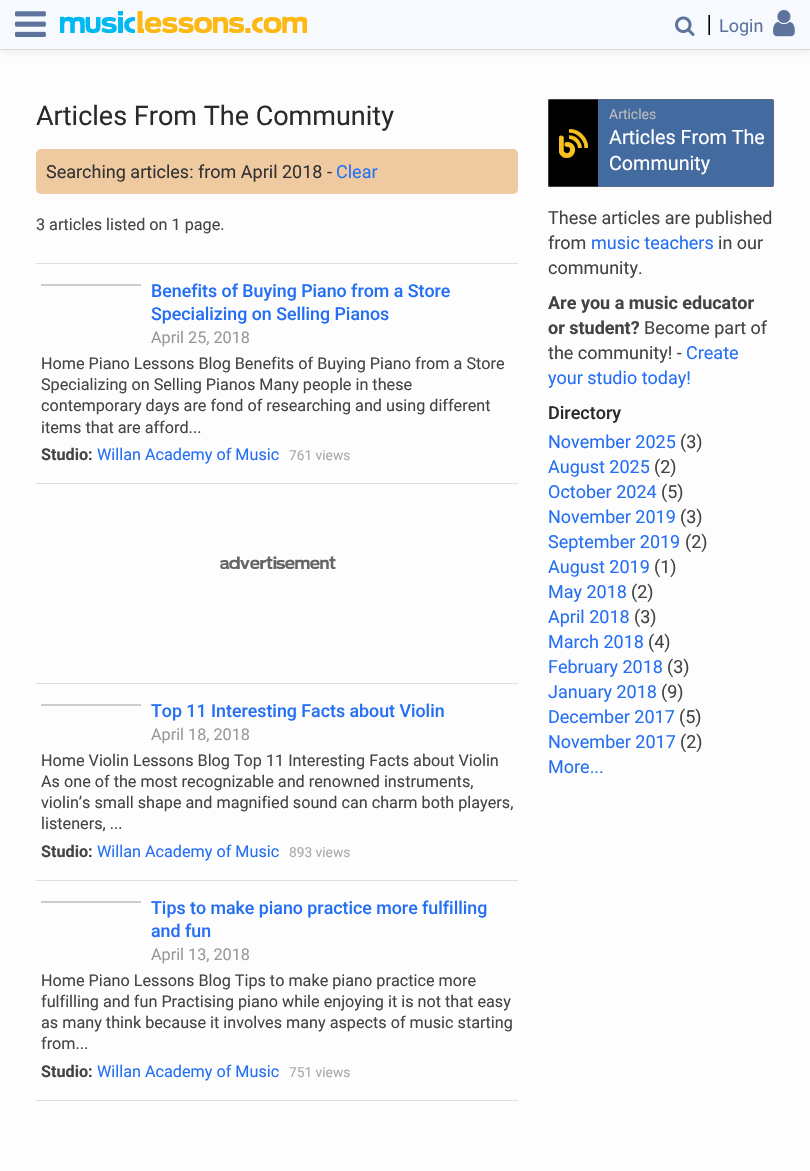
#include "include/core/SkBlurTypes.h"
#include "include/core/SkCanvas.h"
#include "include/core/SkData.h"
#include "include/core/SkFont.h"
#include "include/core/SkFontMgr.h"
#include "include/core/SkImage.h"
#include "include/core/SkMaskFilter.h"
#include "include/core/SkPaint.h"
#include "include/core/SkPathBuilder.h"
#include "include/core/SkTextBlob.h"
#include "include/effects/SkDashPathEffect.h"
#include "include/effects/SkGradientShader.h"
#include "include/utils/SkParsePath.h"

extern sk_sp<SkFontMgr> fontMgr;

static SkFont font(const char* family, int weight, float size, bool italic = false) {
    SkFontStyle style(weight, SkFontStyle::kNormal_Width,
        italic ? SkFontStyle::kItalic_Slant : SkFontStyle::kUpright_Slant);
    SkFont result(fontMgr->matchFamilyStyle(family, style), size);
    result.setSubpixel(true);
    return result;
}

static void drawLabel(SkCanvas* canvas, const char* s, float x, float y, const SkFont& font, SkColor color) {
    SkPaint ink(SkColor4f::FromColor(color));
    ink.setAntiAlias(true);
    canvas->drawString(s, x, y, font, ink);
}

static void fillRect(SkCanvas* canvas, float x, float y, float w, float h, SkColor color) {
    SkPaint ink(SkColor4f::FromColor(color));
    ink.setAntiAlias(true);
    canvas->drawRect(SkRect::MakeXYWH(x, y, w, h), ink);
}

static void fillRRect(SkCanvas* canvas, float x, float y, float w, float h, float radius, SkColor color) {
    SkPaint ink(SkColor4f::FromColor(color));
    ink.setAntiAlias(true);
    canvas->drawRoundRect(SkRect::MakeXYWH(x, y, w, h), radius, radius, ink);
}

static void drawPhoto(SkCanvas* canvas, const char* path, float x, float y, float w, float h) {
    auto image = SkImages::DeferredFromEncodedData(SkData::MakeFromFileName(path));
    canvas->drawImageRect(image, SkRect::MakeXYWH(x, y, w, h), SkSamplingOptions());
}

void draw(SkCanvas* canvas) {
    SkPaint paint;
    paint.setAntiAlias(true);
    canvas->clear(0xFFFDFDFD);
    paint.setColor(0x1A000000);
    paint.setMaskFilter(SkMaskFilter::MakeBlur(kNormal_SkBlurStyle, 5));
    canvas->drawRect(SkRect::MakeXYWH(0, 0, 810, 50), paint);
    paint.setMaskFilter(nullptr);
    fillRect(canvas, 0, 0, 810, 49, 0xFFF6FAFF);
    fillRect(canvas, 0, 49, 810, 1, 0xFFDBDBDB);
    drawPhoto(canvas, "assets/img1.png", 15, 11, 31, 26);
    drawPhoto(canvas, "assets/img2.png", 60, 11, 247, 22);
    drawPhoto(canvas, "assets/img3.png", 675, 16, 20, 20);
    drawPhoto(canvas, "assets/img4.png", 708, 15, 2, 20);
    SkFont font1 = font("Roboto", 400, 18);
    drawLabel(canvas, "Login", 719, 32, font1, 0xFF5E739B);
    drawPhoto(canvas, "assets/img5.png", 773, 10, 22, 27);
    SkFont font2 = font("Roboto", 400, 27);
    drawLabel(canvas, "Articles From The Community", 36, 125, font2, 0xFF2A2A2A);
    fillRRect(canvas, 36, 149, 482, 45, 5, 0xFFEFCAA1);
    drawLabel(canvas, "Searching articles: from April 2018 -", 46, 178, font1, 0xFF333333);
    drawLabel(canvas, "Clear", 336, 178, font1, 0xFF246FF4);
    SkFont font3 = font("Roboto", 400, 16.2f);
    drawLabel(canvas, "3 articles listed on 1 page.", 36, 230, font3, 0xFF444444);
    fillRect(canvas, 36, 263, 482, 1, 0xFFDEDEDE);
    fillRect(canvas, 36, 483, 482, 1, 0xFFDEDEDE);
    SkFont font4 = font("Roboto", 500, 17.8f);
    drawLabel(canvas, "Benefits of Buying Piano from a Store", 151, 297, font4, 0xFF246FF4);
    drawLabel(canvas, "Specializing on Selling Pianos", 151, 320, font4, 0xFF246FF4);
    drawLabel(canvas, "April 25, 2018", 151, 343, font3, 0xFF999999);
    drawLabel(canvas, "Home Piano Lessons Blog Benefits of Buying Piano from a Store", 41, 369, font3, 0xFF444444);
    drawLabel(canvas, "Specializing on Selling Pianos Many people in these", 41, 390, font3, 0xFF444444);
    drawLabel(canvas, "contemporary days are fond of researching and using different", 41, 411, font3, 0xFF444444);
    drawLabel(canvas, "items that are afford...", 41, 433, font3, 0xFF444444);
    SkFont font5 = font("Roboto", 700, 16.2f);
    drawLabel(canvas, "Studio:", 41, 460, font5, 0xFF444444);
    drawLabel(canvas, "Willan Academy of Music", 97, 460, font3, 0xFF246FF4);
    SkFont font6 = font("Roboto", 400, 13.75f);
    drawLabel(canvas, "761 views", 289, 460, font6, 0xFFAAAAAA);
    fillRect(canvas, 41, 284, 100, 2, 0xFFCCCCCC);
    fillRect(canvas, 36, 683, 482, 1, 0xFFDEDEDE);
    drawPhoto(canvas, "assets/img6.png", 220, 556, 116, 13);
    fillRect(canvas, 36, 880, 482, 1, 0xFFDEDEDE);
    drawLabel(canvas, "Top 11 Interesting Facts about Violin", 151, 717, font4, 0xFF246FF4);
    drawLabel(canvas, "April 18, 2018", 151, 740, font3, 0xFF999999);
    drawLabel(canvas, "Home Violin Lessons Blog Top 11 Interesting Facts about Violin", 41, 766, font3, 0xFF444444);
    drawLabel(canvas, "As one of the most recognizable and renowned instruments,", 41, 787, font3, 0xFF444444);
    drawLabel(canvas, "violin’s small shape and magnified sound can charm both players,", 41, 808, font3, 0xFF444444);
    drawLabel(canvas, "listeners, ...", 41, 829, font3, 0xFF444444);
    drawLabel(canvas, "Studio:", 41, 857, font5, 0xFF444444);
    drawLabel(canvas, "Willan Academy of Music", 97, 857, font3, 0xFF246FF4);
    drawLabel(canvas, "893 views", 289, 857, font6, 0xFFAAAAAA);
    fillRect(canvas, 41, 704, 100, 2, 0xFFCCCCCC);
    fillRect(canvas, 36, 1100, 482, 1, 0xFFDEDEDE);
    drawLabel(canvas, "Tips to make piano practice more fulfilling", 151, 914, font4, 0xFF246FF4);
    drawLabel(canvas, "and fun", 151, 937, font4, 0xFF246FF4);
    drawLabel(canvas, "April 13, 2018", 151, 960, font3, 0xFF999999);
    drawLabel(canvas, "Home Piano Lessons Blog Tips to make piano practice more", 41, 986, font3, 0xFF444444);
    drawLabel(canvas, "fulfilling and fun Practising piano while enjoying it is not that easy", 41, 1007, font3, 0xFF444444);
    drawLabel(canvas, "as many think because it involves many aspects of music starting", 41, 1028, font3, 0xFF444444);
    drawLabel(canvas, "from...", 41, 1049, font3, 0xFF444444);
    drawLabel(canvas, "Studio:", 41, 1077, font5, 0xFF444444);
    drawLabel(canvas, "Willan Academy of Music", 97, 1077, font3, 0xFF246FF4);
    drawLabel(canvas, "751 views", 289, 1077, font6, 0xFFAAAAAA);
    fillRect(canvas, 41, 901, 100, 2, 0xFFCCCCCC);
    fillRRect(canvas, 548, 99, 226, 88, 2, 0xFF436BA0);
    drawPhoto(canvas, "assets/img7.png", 548, 99, 50, 88);
    paint.setStroke(true);
    paint.setStrokeWidth(1);
    paint.setColor(0x8F6C6C6C);
    canvas->drawRoundRect(SkRect::MakeXYWH(548.5f, 99.5f, 225, 87), 1.5f, 1.5f, paint);
    SkFont font7 = font("Roboto", 400, 14);
    drawLabel(canvas, "Articles", 609, 119, font7, 0xFFBBBBBB);
    SkFont font8 = font("Roboto", 400, 19.75f);
    drawLabel(canvas, "Articles From The", 609, 144, font8, 0xFFFFFFFF);
    drawLabel(canvas, "Community", 609, 170, font8, 0xFFFFFFFF);
    drawLabel(canvas, "These articles are published", 548, 224, font1, 0xFF444444);
    drawLabel(canvas, "from", 548, 249, font1, 0xFF444444);
    drawLabel(canvas, "music teachers", 591, 249, font1, 0xFF246FF4);
    drawLabel(canvas, "in our", 718, 249, font1, 0xFF444444);
    drawLabel(canvas, "community.", 548, 274, font1, 0xFF444444);
    SkFont font9 = font("Roboto", 700, 18);
    drawLabel(canvas, "Are you a music educator", 548, 309, font9, 0xFF444444);
    drawLabel(canvas, "or student?", 548, 334, font9, 0xFF444444);
    drawLabel(canvas, "Become part of", 644, 334, font1, 0xFF444444);
    drawLabel(canvas, "the community! -", 548, 359, font1, 0xFF444444);
    drawLabel(canvas, "Create", 686, 359, font1, 0xFF246FF4);
    drawLabel(canvas, "your studio today!", 548, 384, font1, 0xFF246FF4);
    SkFont font10 = font("Roboto", 500, 18);
    drawLabel(canvas, "Directory", 548, 419, font10, 0xFF2A2A2A);
    drawLabel(canvas, "November 2025", 548, 448, font1, 0xFF246FF4);
    drawLabel(canvas, "(3)", 680, 448, font1, 0xFF444444);
    drawLabel(canvas, "August 2025", 548, 473, font1, 0xFF246FF4);
    drawLabel(canvas, "(2)", 654, 473, font1, 0xFF444444);
    drawLabel(canvas, "October 2024", 548, 498, font1, 0xFF246FF4);
    drawLabel(canvas, "(5)", 661, 498, font1, 0xFF444444);
    drawLabel(canvas, "November 2019", 548, 523, font1, 0xFF246FF4);
    drawLabel(canvas, "(3)", 680, 523, font1, 0xFF444444);
    drawLabel(canvas, "September 2019", 548, 548, font1, 0xFF246FF4);
    drawLabel(canvas, "(2)", 685, 548, font1, 0xFF444444);
    drawLabel(canvas, "August 2019", 548, 573, font1, 0xFF246FF4);
    drawLabel(canvas, "(1)", 654, 573, font1, 0xFF444444);
    drawLabel(canvas, "May 2018", 548, 598, font1, 0xFF246FF4);
    drawLabel(canvas, "(2)", 631, 598, font1, 0xFF444444);
    drawLabel(canvas, "April 2018", 548, 623, font1, 0xFF246FF4);
    drawLabel(canvas, "(3)", 634, 623, font1, 0xFF444444);
    drawLabel(canvas, "March 2018", 548, 648, font1, 0xFF246FF4);
    drawLabel(canvas, "(4)", 648, 648, font1, 0xFF444444);
    drawLabel(canvas, "February 2018", 548, 673, font1, 0xFF246FF4);
    drawLabel(canvas, "(3)", 667, 673, font1, 0xFF444444);
    drawLabel(canvas, "January 2018", 548, 698, font1, 0xFF246FF4);
    drawLabel(canvas, "(9)", 661, 698, font1, 0xFF444444);
    drawLabel(canvas, "December 2017", 548, 723, font1, 0xFF246FF4);
    drawLabel(canvas, "(5)", 679, 723, font1, 0xFF444444);
    drawLabel(canvas, "November 2017", 548, 748, font1, 0xFF246FF4);
    drawLabel(canvas, "(2)", 680, 748, font1, 0xFF444444);
    drawLabel(canvas, "More...", 548, 773, font1, 0xFF246FF4);
}
